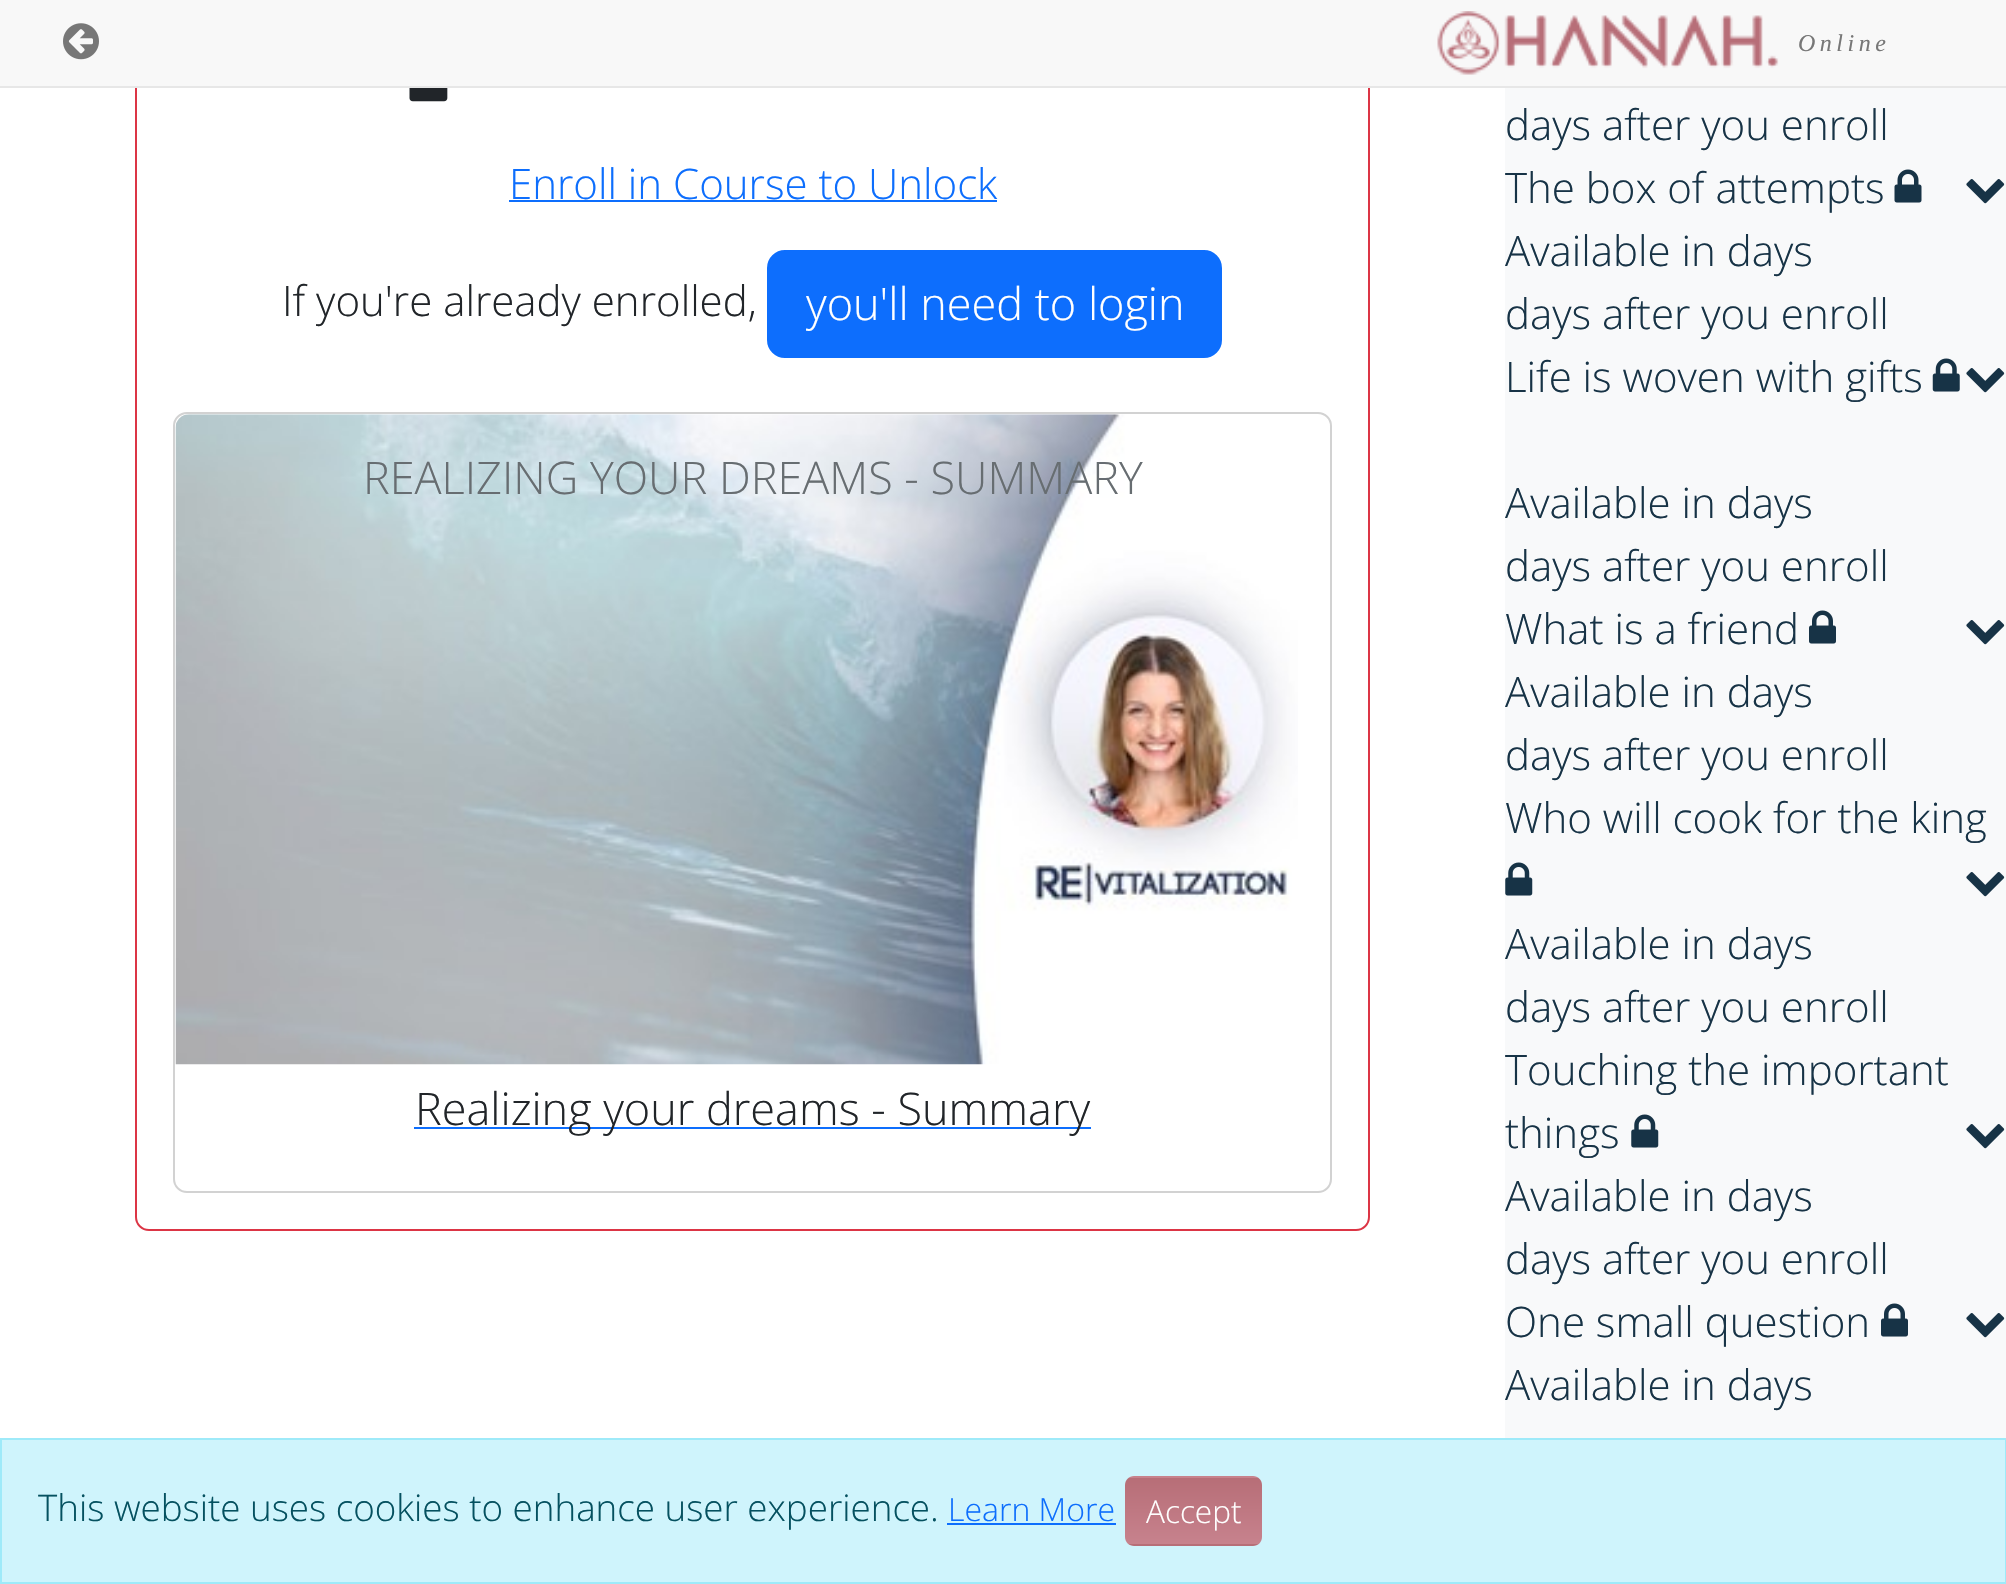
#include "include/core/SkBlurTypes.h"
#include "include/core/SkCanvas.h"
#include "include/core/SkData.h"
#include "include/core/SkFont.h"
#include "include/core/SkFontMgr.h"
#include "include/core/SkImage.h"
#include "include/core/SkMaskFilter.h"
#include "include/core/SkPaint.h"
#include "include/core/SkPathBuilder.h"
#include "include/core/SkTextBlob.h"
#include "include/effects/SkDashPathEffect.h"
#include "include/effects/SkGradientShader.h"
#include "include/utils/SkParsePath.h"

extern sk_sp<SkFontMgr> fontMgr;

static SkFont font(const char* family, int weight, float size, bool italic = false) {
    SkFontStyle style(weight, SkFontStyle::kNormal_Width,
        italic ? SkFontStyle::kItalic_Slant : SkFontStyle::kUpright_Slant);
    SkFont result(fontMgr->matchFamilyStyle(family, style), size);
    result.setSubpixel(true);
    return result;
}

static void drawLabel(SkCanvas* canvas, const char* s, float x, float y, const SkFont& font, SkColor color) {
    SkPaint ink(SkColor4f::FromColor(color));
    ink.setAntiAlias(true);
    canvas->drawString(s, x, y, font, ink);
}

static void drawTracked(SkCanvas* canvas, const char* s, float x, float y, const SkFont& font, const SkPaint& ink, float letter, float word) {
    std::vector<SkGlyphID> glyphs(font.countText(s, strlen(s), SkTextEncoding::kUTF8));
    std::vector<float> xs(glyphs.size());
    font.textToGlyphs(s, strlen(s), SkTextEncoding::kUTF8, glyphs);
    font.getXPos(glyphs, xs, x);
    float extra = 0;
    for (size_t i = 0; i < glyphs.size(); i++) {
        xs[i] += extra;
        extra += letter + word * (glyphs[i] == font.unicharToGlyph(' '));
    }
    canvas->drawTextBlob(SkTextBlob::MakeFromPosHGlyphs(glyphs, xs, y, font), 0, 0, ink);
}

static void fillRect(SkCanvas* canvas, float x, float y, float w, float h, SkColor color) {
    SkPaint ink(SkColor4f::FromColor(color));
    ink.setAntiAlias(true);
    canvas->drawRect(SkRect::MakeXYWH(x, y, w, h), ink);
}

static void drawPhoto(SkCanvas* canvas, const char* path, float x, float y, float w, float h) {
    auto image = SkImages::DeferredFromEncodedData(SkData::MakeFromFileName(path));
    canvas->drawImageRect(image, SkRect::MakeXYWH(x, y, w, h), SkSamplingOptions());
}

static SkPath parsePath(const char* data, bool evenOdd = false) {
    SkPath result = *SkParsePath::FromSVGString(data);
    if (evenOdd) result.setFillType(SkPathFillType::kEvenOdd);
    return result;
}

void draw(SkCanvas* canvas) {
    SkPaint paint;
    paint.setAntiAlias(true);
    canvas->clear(0xFFFFFFFF);
    paint.setStroke(true);
    paint.setStrokeWidth(2);
    paint.setColor(0xFFDC3545);
    canvas->drawRoundRect(SkRect::MakeXYWH(136, 8, 1233, 1222), 13, 13, paint);
    fillRect(canvas, 0, 0, 2006, 86, 0xFFF8F8F8);
    fillRect(canvas, 0, 86, 2006, 2, 0xFFE7E7E7);
    drawPhoto(canvas, "assets/img1.png", 63, 23, 36, 37);
    drawPhoto(canvas, "assets/img2.png", 1437, 11, 342, 64);
    SkFont font1 = font("Liberation Serif", 400, 24, true);
    paint.setStroke(false);
    paint.setColor(0xFF777777);
    drawTracked(canvas, "Online", 1798, 51, font1, paint, 4.5f, 0);
    drawPhoto(canvas, "assets/img3.png", 409, 88, 39, 14);
    SkFont font2 = font("Open Sans", 300, 42);
    drawLabel(canvas, "Enroll in Course to Unlock", 509, 199, font2, 0xFF0D6EFD);
    fillRect(canvas, 509, 200, 488, 2, 0xFF0D6EFD);
    drawLabel(canvas, "If you're already enrolled,", 282, 316, font2, 0xFF212529);
    paint.setColor(0xFF0D6EFD);
    canvas->drawRoundRect(SkRect::MakeXYWH(768, 251, 453, 106), 17, 17, paint);
    paint.setStroke(true);
    canvas->drawRoundRect(SkRect::MakeXYWH(768, 251, 453, 106), 17, 17, paint);
    SkFont font3 = font("Open Sans", 300, 45);
    drawLabel(canvas, "you'll need to login", 806, 320, font3, 0xFFFFFFFF);
    paint.setColor(0xFFD2D2D2);
    canvas->drawRoundRect(SkRect::MakeXYWH(174, 413, 1157, 779), 13, 13, paint);
    drawPhoto(canvas, "assets/img4.png", 175, 414, 1123, 651);
    drawLabel(canvas, "REALIZING YOUR DREAMS - SUMMARY", 363, 494, font3, 0xFF676D71);
    fillRect(canvas, 414, 1127, 677, 2, 0xFF0D6EFD);
    drawLabel(canvas, "Realizing your dreams - Summary", 415, 1125, font3, 0xFF212529);
    fillRect(canvas, 1505, 88, 501, 1350, 0xFFF8F9FA);
    drawLabel(canvas, "days after you enroll", 1505, 140, font2, 0xFF173346);
    drawLabel(canvas, "The box of attempts", 1505, 203, font2, 0xFF173346);
    drawPhoto(canvas, "assets/img5.png", 1966, 179, 39, 25);
    drawPhoto(canvas, "assets/img6.png", 1894, 169, 28, 34);
    drawLabel(canvas, "Available in days", 1505, 266, font2, 0xFF173346);
    drawLabel(canvas, "days after you enroll", 1505, 329, font2, 0xFF173346);
    drawLabel(canvas, "Life is woven with gifts", 1505, 392, font2, 0xFF173346);
    drawPhoto(canvas, "assets/img5.png", 1966, 368, 39, 25);
    drawPhoto(canvas, "assets/img7.png", 1932, 358, 28, 34);
    drawLabel(canvas, "Available in days", 1505, 518, font2, 0xFF173346);
    drawLabel(canvas, "days after you enroll", 1505, 581, font2, 0xFF173346);
    drawLabel(canvas, "What is a friend", 1505, 644, font2, 0xFF173346);
    drawPhoto(canvas, "assets/img5.png", 1966, 620, 39, 25);
    drawPhoto(canvas, "assets/img8.png", 1809, 610, 27, 34);
    drawLabel(canvas, "Available in days", 1505, 707, font2, 0xFF173346);
    drawLabel(canvas, "days after you enroll", 1505, 770, font2, 0xFF173346);
    drawLabel(canvas, "Who will cook for the king", 1505, 833, font2, 0xFF173346);
    drawPhoto(canvas, "assets/img5.png", 1966, 872, 39, 25);
    drawPhoto(canvas, "assets/img9.png", 1505, 862, 28, 34);
    drawLabel(canvas, "Available in days", 1505, 959, font2, 0xFF173346);
    drawLabel(canvas, "days after you enroll", 1505, 1022, font2, 0xFF173346);
    drawLabel(canvas, "Touching the important", 1505, 1085, font2, 0xFF173346);
    drawLabel(canvas, "things", 1505, 1148, font2, 0xFF173346);
    drawPhoto(canvas, "assets/img5.png", 1966, 1124, 39, 25);
    drawPhoto(canvas, "assets/img9.png", 1631, 1114, 28, 34);
    drawLabel(canvas, "Available in days", 1505, 1211, font2, 0xFF173346);
    drawLabel(canvas, "days after you enroll", 1505, 1274, font2, 0xFF173346);
    drawLabel(canvas, "One small question", 1505, 1337, font2, 0xFF173346);
    drawPhoto(canvas, "assets/img5.png", 1966, 1313, 39, 25);
    drawPhoto(canvas, "assets/img8.png", 1881, 1303, 27, 34);
    drawLabel(canvas, "Available in days", 1505, 1400, font2, 0xFF173346);
    paint.setStroke(false);
    paint.setColor(0xFFCFF4FC);
    canvas->drawRect(SkRect::MakeXYWH(1, 1439, 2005, 144), paint);
    paint.setStroke(true);
    paint.setColor(0xFF9EEAF9);
    canvas->drawRect(SkRect::MakeXYWH(1, 1439, 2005, 144), paint);
    SkFont font4 = font("Open Sans", 300, 36.75f);
    drawLabel(canvas, "This website uses cookies to enhance user experience.", 38, 1521, font4, 0xFF055160);
    SkFont font5 = font("Open Sans", 300, 32);
    drawLabel(canvas, "Learn More", 948, 1521, font5, 0xFF0D6EFD);
    fillRect(canvas, 947, 1523, 169, 2, 0xFF0D6EFD);
    canvas->save();
    canvas->clipPath(parsePath("M1134 1476H1253C1258 1476 1262 1480 1262 1485V1537C1262 1542 1258 1546 1253 1546H1134C1129 1546 1125 1542 1125 1537V1485C1125 1480 1129 1476 1134 1476Z"), true);
    paint.setStroke(false);
    {
        const SkColor colors[] = {0xFFB76E77, 0xFFC7828D};
        const float stops[] = {0, 1};
        const SkPoint ends[] = {{1194, 1413}, {1194, 1478}};
        paint.setShader(SkGradientShader::MakeLinear(ends, colors, stops, 2, SkTileMode::kClamp));
        paint.setAlpha(255);
    }
    canvas->drawRect(SkRect::MakeXYWH(1125, 1476, 137, 2), paint);
    {
        const SkColor colors[] = {0xFFB76E77, 0xFFC7828D};
        const float stops[] = {0, 1};
        const SkPoint ends[] = {{1194, 1478}, {1194, 1544}};
        paint.setShader(SkGradientShader::MakeLinear(ends, colors, stops, 2, SkTileMode::kClamp));
        paint.setAlpha(255);
    }
    canvas->drawRect(SkRect::MakeXYWH(1125, 1478, 137, 66), paint);
    {
        const SkColor colors[] = {0xFFB76E77, 0xFFC7828D};
        const float stops[] = {0, 1};
        const SkPoint ends[] = {{1194, 1544}, {1194, 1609}};
        paint.setShader(SkGradientShader::MakeLinear(ends, colors, stops, 2, SkTileMode::kClamp));
        paint.setAlpha(255);
    }
    canvas->drawRect(SkRect::MakeXYWH(1125, 1544, 137, 2), paint);
    canvas->restore();
    SkFont font6 = font("Open Sans", 300, 31.5f);
    drawLabel(canvas, "Accept", 1146, 1523, font6, 0xFFFFFFFF);
}
